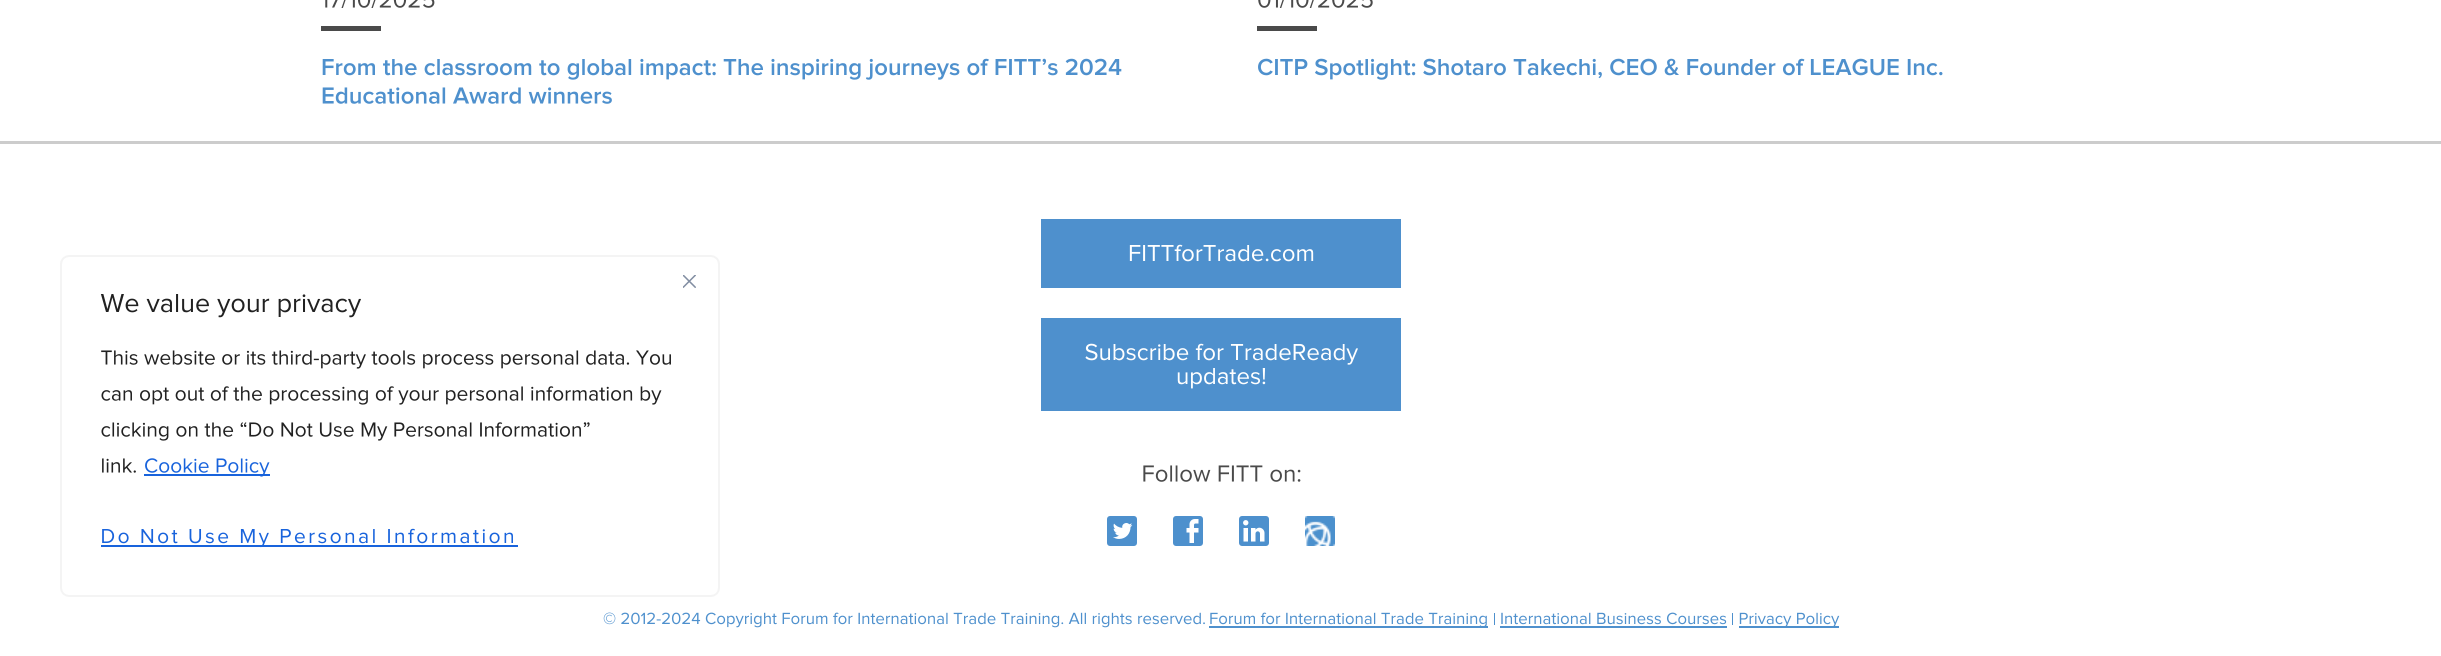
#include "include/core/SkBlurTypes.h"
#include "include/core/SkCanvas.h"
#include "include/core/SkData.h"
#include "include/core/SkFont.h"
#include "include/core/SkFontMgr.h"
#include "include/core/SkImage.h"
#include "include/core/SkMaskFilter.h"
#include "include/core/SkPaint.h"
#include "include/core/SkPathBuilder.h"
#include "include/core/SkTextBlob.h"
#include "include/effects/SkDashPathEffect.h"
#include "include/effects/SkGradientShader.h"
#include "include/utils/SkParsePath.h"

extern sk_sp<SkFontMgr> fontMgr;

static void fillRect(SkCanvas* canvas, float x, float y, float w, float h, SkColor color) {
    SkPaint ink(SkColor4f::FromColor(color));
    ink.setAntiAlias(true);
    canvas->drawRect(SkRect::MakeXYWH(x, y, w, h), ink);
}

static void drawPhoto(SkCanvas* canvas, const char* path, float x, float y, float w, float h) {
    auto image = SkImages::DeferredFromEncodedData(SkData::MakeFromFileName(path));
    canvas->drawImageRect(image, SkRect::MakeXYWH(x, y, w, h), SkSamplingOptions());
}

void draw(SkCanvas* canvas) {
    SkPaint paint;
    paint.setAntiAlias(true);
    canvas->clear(0xFFFFFFFF);
    drawPhoto(canvas, "assets/img1.png", 325, 0, 110, 8);
    fillRect(canvas, 321, 26, 60, 5, 0xFF4A4A4A);
    drawPhoto(canvas, "assets/img2.png", 322, 58, 800, 22);
    drawPhoto(canvas, "assets/img3.png", 322, 87, 290, 17);
    drawPhoto(canvas, "assets/img4.png", 1258, 0, 115, 8);
    fillRect(canvas, 1257, 26, 60, 5, 0xFF4A4A4A);
    drawPhoto(canvas, "assets/img5.png", 1258, 58, 685, 22);
    fillRect(canvas, 0, 141, 2441, 3, 0xFFCCCCCC);
    fillRect(canvas, 1041, 219, 360, 69, 0xFF4E90CD);
    drawPhoto(canvas, "assets/img6.png", 1129, 244, 185, 18);
    fillRect(canvas, 1041, 318, 360, 93, 0xFF4E90CD);
    drawPhoto(canvas, "assets/img7.png", 1085, 343, 273, 22);
    drawPhoto(canvas, "assets/img8.png", 1177, 368, 89, 21);
    drawPhoto(canvas, "assets/img9.png", 1143, 465, 158, 17);
    drawPhoto(canvas, "assets/img10.png", 1107, 516, 30, 30);
    drawPhoto(canvas, "assets/img11.png", 1173, 516, 30, 30);
    drawPhoto(canvas, "assets/img12.png", 1239, 516, 30, 30);
    drawPhoto(canvas, "assets/img13.png", 1305, 516, 30, 30);
    drawPhoto(canvas, "assets/img14.png", 603, 612, 602, 16);
    drawPhoto(canvas, "assets/img15.png", 1210, 612, 277, 14);
    fillRect(canvas, 1494, 613, 1, 12, 0xFF4E90CD);
    drawPhoto(canvas, "assets/img16.png", 1501, 612, 226, 13);
    fillRect(canvas, 1732, 613, 1, 12, 0xFF4E90CD);
    drawPhoto(canvas, "assets/img17.png", 1739, 612, 101, 14);
    fillRect(canvas, 1209, 626, 279, 2, 0xFF4E90CD);
    fillRect(canvas, 1500, 626, 227, 2, 0xFF4E90CD);
    fillRect(canvas, 1739, 626, 100, 2, 0xFF4E90CD);
    paint.setStroke(true);
    paint.setStrokeWidth(2);
    paint.setColor(0xFFF4F4F4);
    canvas->drawRoundRect(SkRect::MakeXYWH(61, 256, 658, 340), 8, 8, paint);
    drawPhoto(canvas, "assets/img18.png", 683, 275, 13, 13);
    drawPhoto(canvas, "assets/img19.png", 100, 294, 261, 24);
    drawPhoto(canvas, "assets/img20.png", 101, 350, 570, 19);
    drawPhoto(canvas, "assets/img21.png", 101, 386, 561, 19);
    drawPhoto(canvas, "assets/img22.png", 101, 422, 489, 19);
    drawPhoto(canvas, "assets/img23.png", 102, 458, 34, 15);
    fillRect(canvas, 144, 474, 126, 2, 0xFF1863DC);
    drawPhoto(canvas, "assets/img24.png", 145, 458, 125, 19);
    fillRect(canvas, 101, 545, 417, 2, 0xFF1863DC);
    drawPhoto(canvas, "assets/img25.png", 102, 528, 411, 20);
}
